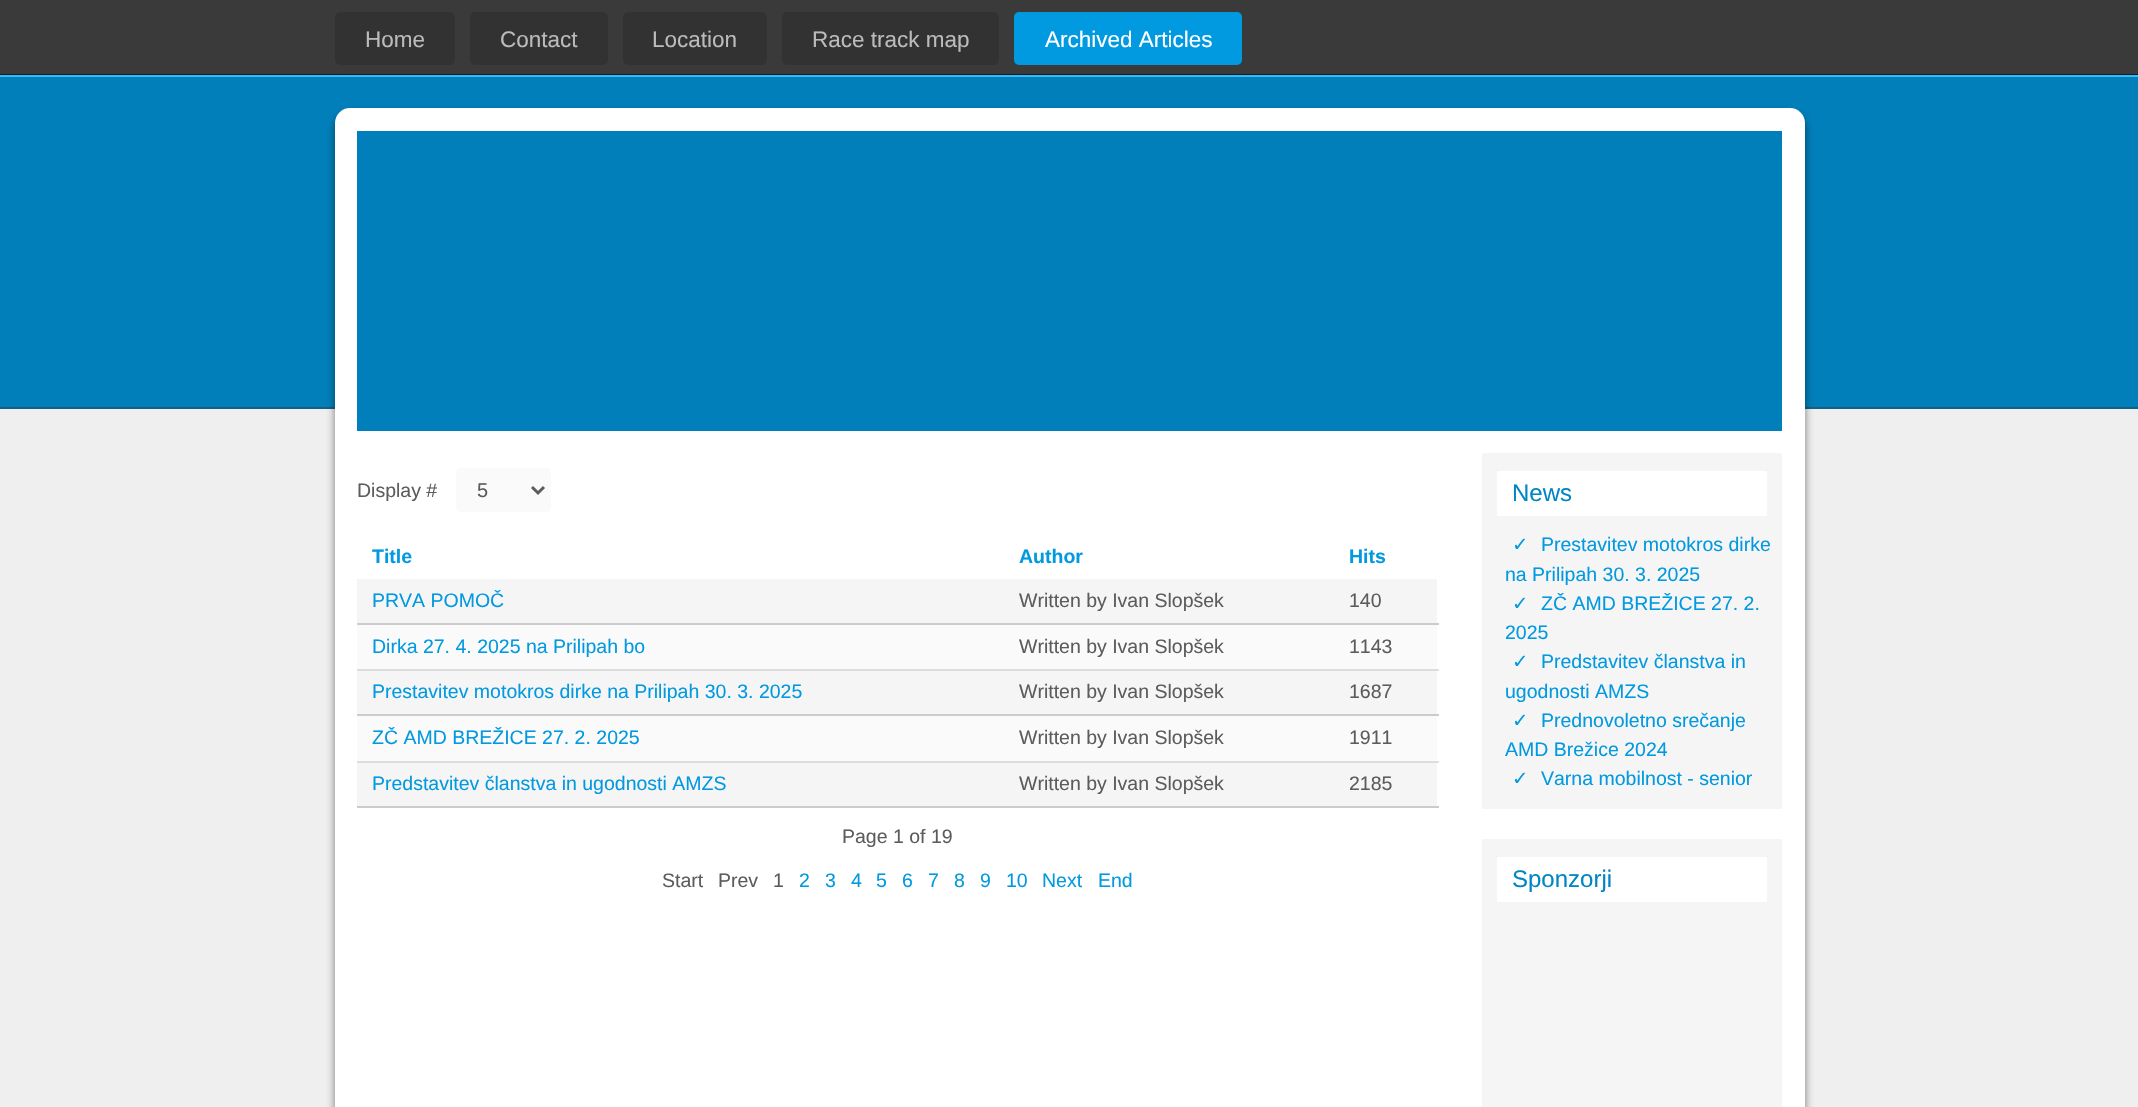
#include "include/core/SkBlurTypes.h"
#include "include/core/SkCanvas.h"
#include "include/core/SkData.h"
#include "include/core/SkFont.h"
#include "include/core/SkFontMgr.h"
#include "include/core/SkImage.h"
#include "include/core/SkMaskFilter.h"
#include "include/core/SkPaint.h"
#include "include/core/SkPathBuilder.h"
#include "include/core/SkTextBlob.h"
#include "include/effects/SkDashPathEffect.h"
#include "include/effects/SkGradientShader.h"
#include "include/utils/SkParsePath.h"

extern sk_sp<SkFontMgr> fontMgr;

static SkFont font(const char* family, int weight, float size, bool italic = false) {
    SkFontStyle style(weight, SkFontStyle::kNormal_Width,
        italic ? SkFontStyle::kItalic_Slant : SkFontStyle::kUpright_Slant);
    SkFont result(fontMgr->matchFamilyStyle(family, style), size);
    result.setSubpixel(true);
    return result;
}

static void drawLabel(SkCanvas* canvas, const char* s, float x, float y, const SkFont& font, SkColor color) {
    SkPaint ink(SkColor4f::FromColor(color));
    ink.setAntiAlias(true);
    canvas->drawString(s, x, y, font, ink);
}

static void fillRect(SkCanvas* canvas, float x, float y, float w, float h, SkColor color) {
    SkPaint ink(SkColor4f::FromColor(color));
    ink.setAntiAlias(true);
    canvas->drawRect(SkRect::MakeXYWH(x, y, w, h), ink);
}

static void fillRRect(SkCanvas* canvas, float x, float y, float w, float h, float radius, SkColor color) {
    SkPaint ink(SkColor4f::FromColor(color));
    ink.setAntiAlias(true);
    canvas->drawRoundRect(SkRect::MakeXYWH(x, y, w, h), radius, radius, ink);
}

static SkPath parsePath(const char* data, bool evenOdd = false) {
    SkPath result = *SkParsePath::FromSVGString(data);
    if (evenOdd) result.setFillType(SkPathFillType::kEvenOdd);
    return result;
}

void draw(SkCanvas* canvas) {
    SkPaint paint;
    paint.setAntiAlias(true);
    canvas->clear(0xFFEFEFEF);
    fillRect(canvas, 0, 0, 2138, 74, 0xFF3A3A3A);
    fillRect(canvas, 0, 74, 2138, 1, 0xFF181818);
    fillRRect(canvas, 335, 12, 120, 53, 5, 0xFF323232);
    SkFont font1 = font("Liberation Sans", 400, 22.5f);
    drawLabel(canvas, "Home", 365, 47, font1, 0xFFBBBBBB);
    fillRRect(canvas, 470, 12, 138, 53, 5, 0xFF323232);
    drawLabel(canvas, "Contact", 500, 47, font1, 0xFFBBBBBB);
    fillRRect(canvas, 623, 12, 144, 53, 5, 0xFF323232);
    drawLabel(canvas, "Location", 652, 47, font1, 0xFFBBBBBB);
    fillRRect(canvas, 782, 12, 217, 53, 5, 0xFF323232);
    drawLabel(canvas, "Race track map", 812, 47, font1, 0xFFBBBBBB);
    fillRRect(canvas, 1014, 12, 228, 53, 5, 0xFF0199E0);
    drawLabel(canvas, "Archived Articles", 1045, 47, font1, 0xFFFFFFFF);
    fillRect(canvas, 0, 77, 2138, 330, 0xFF017FBA);
    fillRect(canvas, 0, 75, 2138, 2, 0xFF30BCFE);
    fillRect(canvas, 0, 407, 2138, 2, 0xFF136185);
    paint.setColor(0x80000000);
    paint.setMaskFilter(SkMaskFilter::MakeBlur(kNormal_SkBlurStyle, 4));
    canvas->drawRoundRect(SkRect::MakeXYWH(335, 114, 1470, 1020), 15, 15, paint);
    paint.setMaskFilter(nullptr);
    fillRRect(canvas, 335, 108, 1470, 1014, 15, 0xFFFFFFFF);
    fillRect(canvas, 357, 131, 1425, 300, 0xFF017FBA);
    SkFont font2 = font("Liberation Sans", 400, 19.5f);
    drawLabel(canvas, "Display #", 357, 497, font2, 0xFF5C5C5C);
    fillRRect(canvas, 456, 468, 95, 44, 5, 0xFFFAFAFA);
    paint.setStroke(true);
    paint.setStrokeWidth(3);
    paint.setColor(0xFF5C5C5C);
    canvas->drawPath(parsePath("M532 487L538 493L544 487"), paint);
    SkFont font3 = font("Liberation Sans", 400, 20);
    drawLabel(canvas, "5", 477, 497, font3, 0xFF5C5C5C);
    SkFont font4 = font("Liberation Sans", 700, 19.5f);
    drawLabel(canvas, "Title", 372, 563, font4, 0xFF0199E0);
    drawLabel(canvas, "Author", 1019, 563, font4, 0xFF0199E0);
    drawLabel(canvas, "Hits", 1349, 563, font4, 0xFF0199E0);
    fillRect(canvas, 357, 579, 1080, 44, 0xFFF5F5F5);
    fillRect(canvas, 357, 623, 1082, 2, 0xFFCCCCCC);
    drawLabel(canvas, "PRVA POMOČ", 372, 607, font2, 0xFF0199E0);
    drawLabel(canvas, "Written by Ivan Slopšek", 1019, 607, font2, 0xFF5C5C5C);
    drawLabel(canvas, "140", 1349, 607, font2, 0xFF5C5C5C);
    fillRect(canvas, 357, 625, 1080, 44, 0xFFFAFAFA);
    fillRect(canvas, 357, 669, 1082, 2, 0xFFDDDDDD);
    drawLabel(canvas, "Dirka 27. 4. 2025 na Prilipah bo", 372, 653, font2, 0xFF0199E0);
    drawLabel(canvas, "Written by Ivan Slopšek", 1019, 653, font2, 0xFF5C5C5C);
    drawLabel(canvas, "1143", 1349, 653, font2, 0xFF5C5C5C);
    fillRect(canvas, 357, 671, 1080, 43, 0xFFF5F5F5);
    fillRect(canvas, 357, 714, 1082, 2, 0xFFCCCCCC);
    drawLabel(canvas, "Prestavitev motokros dirke na Prilipah 30. 3. 2025", 372, 698, font2, 0xFF0199E0);
    drawLabel(canvas, "Written by Ivan Slopšek", 1019, 698, font2, 0xFF5C5C5C);
    drawLabel(canvas, "1687", 1349, 698, font2, 0xFF5C5C5C);
    fillRect(canvas, 357, 716, 1080, 45, 0xFFFAFAFA);
    fillRect(canvas, 357, 761, 1082, 2, 0xFFDDDDDD);
    drawLabel(canvas, "ZČ AMD BREŽICE 27. 2. 2025", 372, 744, font2, 0xFF0199E0);
    drawLabel(canvas, "Written by Ivan Slopšek", 1019, 744, font2, 0xFF5C5C5C);
    drawLabel(canvas, "1911", 1349, 744, font2, 0xFF5C5C5C);
    fillRect(canvas, 357, 763, 1080, 43, 0xFFF5F5F5);
    fillRect(canvas, 357, 806, 1082, 2, 0xFFCCCCCC);
    drawLabel(canvas, "Predstavitev članstva in ugodnosti AMZS", 372, 790, font2, 0xFF0199E0);
    drawLabel(canvas, "Written by Ivan Slopšek", 1019, 790, font2, 0xFF5C5C5C);
    drawLabel(canvas, "2185", 1349, 790, font2, 0xFF5C5C5C);
    drawLabel(canvas, "Page 1 of 19", 842, 843, font2, 0xFF5C5C5C);
    drawLabel(canvas, "Start", 662, 887, font2, 0xFF5C5C5C);
    drawLabel(canvas, "Prev", 718, 887, font2, 0xFF5C5C5C);
    drawLabel(canvas, "1", 773, 887, font2, 0xFF5C5C5C);
    drawLabel(canvas, "2", 799, 887, font2, 0xFF0199E0);
    drawLabel(canvas, "3", 825, 887, font2, 0xFF0199E0);
    drawLabel(canvas, "4", 851, 887, font2, 0xFF0199E0);
    drawLabel(canvas, "5", 876, 887, font2, 0xFF0199E0);
    drawLabel(canvas, "6", 902, 887, font2, 0xFF0199E0);
    drawLabel(canvas, "7", 928, 887, font2, 0xFF0199E0);
    drawLabel(canvas, "8", 954, 887, font2, 0xFF0199E0);
    drawLabel(canvas, "9", 980, 887, font2, 0xFF0199E0);
    drawLabel(canvas, "10", 1006, 887, font2, 0xFF0199E0);
    drawLabel(canvas, "Next", 1042, 887, font2, 0xFF0199E0);
    drawLabel(canvas, "End", 1098, 887, font2, 0xFF0199E0);
    fillRRect(canvas, 1482, 453, 300, 356, 1.5f, 0xFFF5F5F5);
    fillRRect(canvas, 1497, 471, 270, 45, 1.5f, 0xFFFFFFFF);
    SkFont font5 = font("Liberation Sans", 400, 24);
    drawLabel(canvas, "News", 1512, 501, font5, 0xFF0086C4);
    SkFont font6 = font("DejaVu Sans", 400, 19.5f);
    drawLabel(canvas, "✓", 1512, 551, font6, 0xFF0199E0);
    drawLabel(canvas, "Prestavitev motokros dirke", 1541, 551, font2, 0xFF0199E0);
    drawLabel(canvas, "na Prilipah 30. 3. 2025", 1505, 581, font2, 0xFF0199E0);
    drawLabel(canvas, "✓", 1512, 610, font6, 0xFF0199E0);
    drawLabel(canvas, "ZČ AMD BREŽICE 27. 2.", 1541, 610, font2, 0xFF0199E0);
    drawLabel(canvas, "2025", 1505, 639, font2, 0xFF0199E0);
    drawLabel(canvas, "✓", 1512, 668, font6, 0xFF0199E0);
    drawLabel(canvas, "Predstavitev članstva in", 1541, 668, font2, 0xFF0199E0);
    drawLabel(canvas, "ugodnosti AMZS", 1505, 698, font2, 0xFF0199E0);
    drawLabel(canvas, "✓", 1512, 727, font6, 0xFF0199E0);
    drawLabel(canvas, "Prednovoletno srečanje", 1541, 727, font2, 0xFF0199E0);
    drawLabel(canvas, "AMD Brežice 2024", 1505, 756, font2, 0xFF0199E0);
    drawLabel(canvas, "✓", 1512, 785, font6, 0xFF0199E0);
    drawLabel(canvas, "Varna mobilnost - senior", 1541, 785, font2, 0xFF0199E0);
    fillRRect(canvas, 1482, 839, 300, 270, 1.5f, 0xFFF5F5F5);
    fillRRect(canvas, 1497, 857, 270, 45, 1.5f, 0xFFFFFFFF);
    drawLabel(canvas, "Sponzorji", 1512, 887, font5, 0xFF0086C4);
}
